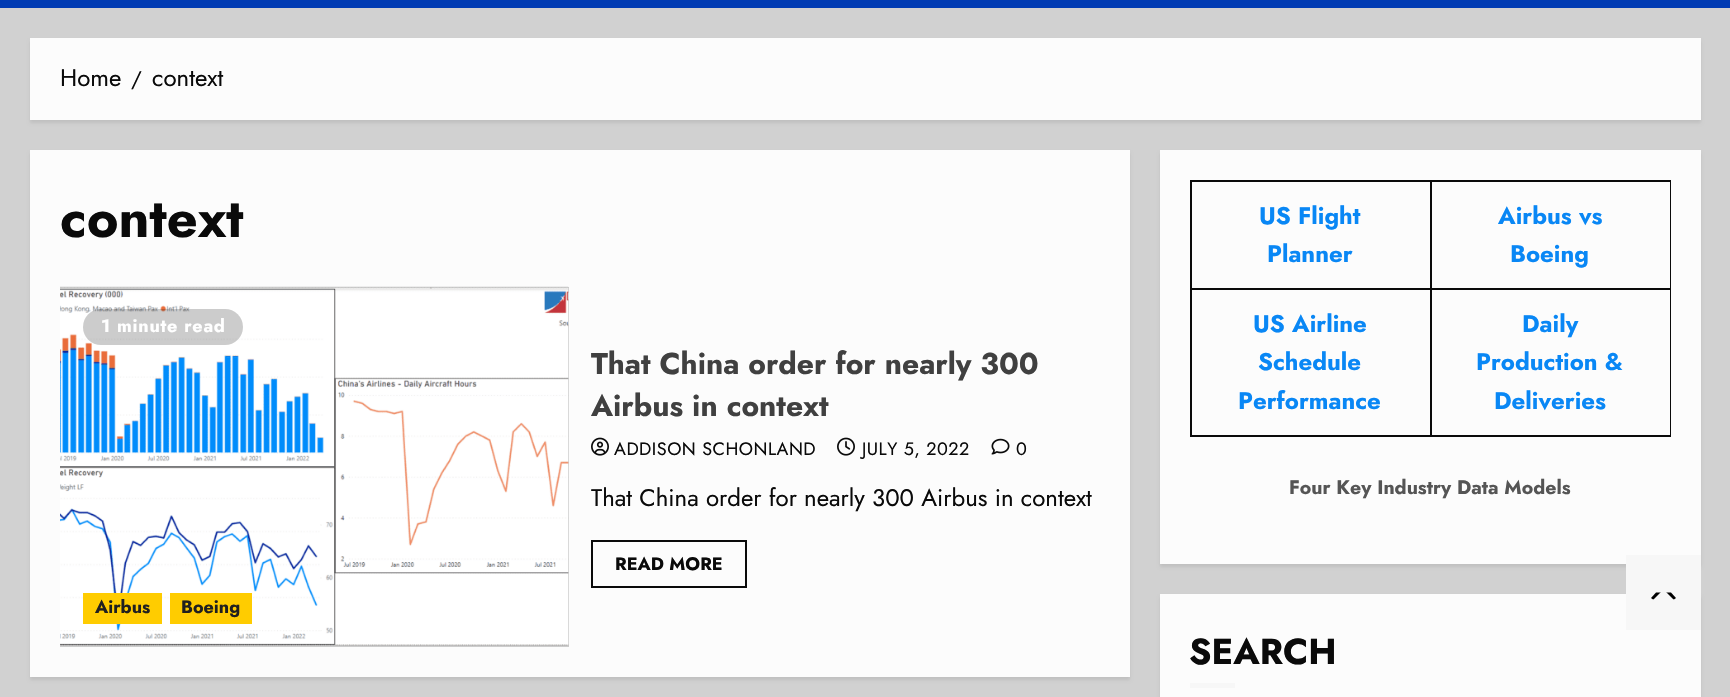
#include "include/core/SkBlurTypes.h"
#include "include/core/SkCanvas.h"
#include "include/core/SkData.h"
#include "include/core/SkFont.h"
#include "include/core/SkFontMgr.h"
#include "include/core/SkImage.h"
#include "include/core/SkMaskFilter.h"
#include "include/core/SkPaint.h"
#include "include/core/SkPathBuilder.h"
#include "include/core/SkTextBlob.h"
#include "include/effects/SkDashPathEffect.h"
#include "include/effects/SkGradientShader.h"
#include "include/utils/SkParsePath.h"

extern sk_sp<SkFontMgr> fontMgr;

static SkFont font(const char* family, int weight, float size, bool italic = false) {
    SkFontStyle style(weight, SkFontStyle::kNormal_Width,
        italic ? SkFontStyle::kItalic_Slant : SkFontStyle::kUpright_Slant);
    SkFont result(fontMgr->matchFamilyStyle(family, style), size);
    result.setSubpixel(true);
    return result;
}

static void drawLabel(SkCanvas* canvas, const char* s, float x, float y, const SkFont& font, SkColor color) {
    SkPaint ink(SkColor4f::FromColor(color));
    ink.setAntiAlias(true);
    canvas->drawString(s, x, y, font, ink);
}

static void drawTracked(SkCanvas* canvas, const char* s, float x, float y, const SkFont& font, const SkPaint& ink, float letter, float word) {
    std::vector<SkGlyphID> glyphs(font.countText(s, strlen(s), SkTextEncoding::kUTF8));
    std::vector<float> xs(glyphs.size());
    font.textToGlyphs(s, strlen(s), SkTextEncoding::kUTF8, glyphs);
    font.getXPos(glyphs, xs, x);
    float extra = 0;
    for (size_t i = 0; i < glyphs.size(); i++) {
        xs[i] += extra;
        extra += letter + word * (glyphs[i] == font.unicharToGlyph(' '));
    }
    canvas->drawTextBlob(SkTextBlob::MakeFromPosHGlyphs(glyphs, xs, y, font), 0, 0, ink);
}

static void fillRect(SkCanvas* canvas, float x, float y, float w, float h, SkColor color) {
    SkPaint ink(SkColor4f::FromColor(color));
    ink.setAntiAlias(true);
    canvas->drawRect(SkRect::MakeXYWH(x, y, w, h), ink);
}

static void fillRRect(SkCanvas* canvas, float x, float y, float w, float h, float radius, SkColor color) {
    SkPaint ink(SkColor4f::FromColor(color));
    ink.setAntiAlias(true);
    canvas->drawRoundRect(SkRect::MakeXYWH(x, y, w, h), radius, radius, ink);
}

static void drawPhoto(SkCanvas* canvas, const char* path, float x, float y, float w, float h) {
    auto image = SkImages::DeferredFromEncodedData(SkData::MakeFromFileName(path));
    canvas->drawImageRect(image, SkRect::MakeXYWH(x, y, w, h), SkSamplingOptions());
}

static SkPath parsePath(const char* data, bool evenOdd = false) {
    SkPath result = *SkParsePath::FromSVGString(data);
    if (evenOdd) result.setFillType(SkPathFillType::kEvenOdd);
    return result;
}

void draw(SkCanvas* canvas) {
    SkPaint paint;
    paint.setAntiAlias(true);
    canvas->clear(0xFFD1D1D1);
    fillRect(canvas, 0, 0, 1730, 8, 0xFF003BB3);
    paint.setColor(0x14000000);
    paint.setMaskFilter(SkMaskFilter::MakeBlur(kNormal_SkBlurStyle, 1.5f));
    canvas->drawRect(SkRect::MakeXYWH(30, 41, 1671, 82), paint);
    paint.setMaskFilter(nullptr);
    fillRect(canvas, 30, 38, 1671, 82, 0xFFFCFCFC);
    SkFont font1 = font("Jost", 400, 24);
    drawLabel(canvas, "Home", 60, 86, font1, 0xFF0A0A0A);
    SkFont font2 = font("Jost", 400, 21);
    drawLabel(canvas, "/", 131, 86, font2, 0xFF0A0A0A);
    drawLabel(canvas, "context", 152, 86, font1, 0xFF0A0A0A);
    paint.setMaskFilter(SkMaskFilter::MakeBlur(kNormal_SkBlurStyle, 1.5f));
    canvas->drawRect(SkRect::MakeXYWH(30, 153, 1100, 527), paint);
    paint.setMaskFilter(nullptr);
    fillRect(canvas, 30, 150, 1100, 527, 0xFFFCFCFC);
    SkFont font3 = font("Jost", 700, 54);
    drawLabel(canvas, "context", 60, 237, font3, 0xFF0A0A0A);
    fillRect(canvas, 60, 287, 509, 360, 0xFFCCCCCC);
    drawPhoto(canvas, "assets/img1.png", 60, 286, 509, 360);
    fillRRect(canvas, 83, 309, 160, 36, 18, 0x33000000);
    SkFont font4 = font("Jost", 700, 18);
    paint.setColor(0xFFFFFFFF);
    drawTracked(canvas, "1 minute read", 101, 332, font4, paint, 0.75f, 0);
    fillRect(canvas, 83, 593, 79, 31, 0xFFFFCC00);
    drawLabel(canvas, "Airbus", 95, 613, font4, 0xFF202020);
    fillRect(canvas, 170, 593, 82, 31, 0xFFFFCC00);
    drawLabel(canvas, "Boeing", 181, 613, font4, 0xFF202020);
    SkFont font5 = font("Jost", 700, 30);
    drawLabel(canvas, "That China order for nearly 300", 591, 374, font5, 0xFF404040);
    drawLabel(canvas, "Airbus in context", 591, 416, font5, 0xFF404040);
    drawPhoto(canvas, "assets/img2.png", 591, 437, 18, 19);
    SkFont font6 = font("Jost", 400, 18);
    paint.setColor(0xFF0A0A0A);
    drawTracked(canvas, "ADDISON SCHONLAND", 614, 455, font6, paint, 0.5f, 0);
    drawPhoto(canvas, "assets/img3.png", 837, 437, 18, 19);
    drawTracked(canvas, "JULY 5, 2022", 862, 455, font6, paint, 0.5f, 0);
    drawPhoto(canvas, "assets/img4.png", 991, 438, 19, 17);
    drawTracked(canvas, "0", 1016, 455, font6, paint, 0.5f, 0);
    drawLabel(canvas, "That China order for nearly 300 Airbus in context", 591, 506, font1, 0xFF0A0A0A);
    paint.setStroke(true);
    paint.setStrokeWidth(2);
    canvas->drawRect(SkRect::MakeXYWH(592, 541, 154, 46), paint);
    drawLabel(canvas, "READ MORE", 615, 570, font4, 0xFF0A0A0A);
    paint.setStroke(false);
    paint.setColor(0x14000000);
    paint.setMaskFilter(SkMaskFilter::MakeBlur(kNormal_SkBlurStyle, 1.5f));
    canvas->drawRect(SkRect::MakeXYWH(1160, 153, 541, 414), paint);
    paint.setMaskFilter(nullptr);
    fillRect(canvas, 1160, 150, 541, 414, 0xFFFCFCFC);
    fillRect(canvas, 1430, 180, 241, 2, 0xFF0A0A0A);
    fillRect(canvas, 1430, 288, 241, 2, 0xFF0A0A0A);
    fillRect(canvas, 1670, 288, 1, 149, 0xFF0A0A0A);
    fillRect(canvas, 1430, 435, 241, 2, 0xFF0A0A0A);
    fillRect(canvas, 1430, 288, 2, 149, 0xFF0A0A0A);
    fillRect(canvas, 1190, 288, 241, 2, 0xFF0A0A0A);
    fillRect(canvas, 1430, 180, 2, 110, 0xFF0A0A0A);
    fillRect(canvas, 1190, 180, 241, 2, 0xFF0A0A0A);
    fillRect(canvas, 1190, 435, 241, 2, 0xFF0A0A0A);
    fillRect(canvas, 1190, 288, 2, 149, 0xFF0A0A0A);
    fillRect(canvas, 1190, 180, 2, 110, 0xFF0A0A0A);
    SkFont font7 = font("Jost", 700, 24);
    drawLabel(canvas, "US Flight", 1259, 224, font7, 0xFF0987F5);
    drawLabel(canvas, "Planner", 1267, 262, font7, 0xFF0987F5);
    fillRect(canvas, 1670, 180, 1, 110, 0xFF0A0A0A);
    drawLabel(canvas, "Airbus vs", 1498, 224, font7, 0xFF0987F5);
    drawLabel(canvas, "Boeing", 1510, 262, font7, 0xFF0987F5);
    drawLabel(canvas, "US Airline", 1253, 332, font7, 0xFF0987F5);
    drawLabel(canvas, "Schedule", 1258, 370, font7, 0xFF0987F5);
    drawLabel(canvas, "Performance", 1238, 409, font7, 0xFF0987F5);
    drawLabel(canvas, "Daily", 1522, 332, font7, 0xFF0987F5);
    drawLabel(canvas, "Production &", 1476, 370, font7, 0xFF0987F5);
    drawLabel(canvas, "Deliveries", 1494, 409, font7, 0xFF0987F5);
    SkFont font8 = font("Jost", 700, 19.5f);
    drawLabel(canvas, "Four Key Industry Data Models", 1289, 494, font8, 0xFF555555);
    paint.setMaskFilter(SkMaskFilter::MakeBlur(kNormal_SkBlurStyle, 1.5f));
    canvas->drawRect(SkRect::MakeXYWH(1160, 597, 541, 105), paint);
    paint.setMaskFilter(nullptr);
    fillRect(canvas, 1160, 594, 541, 103, 0xFFFCFCFC);
    SkFont font9 = font("Jost", 700, 36);
    drawLabel(canvas, "SEARCH", 1189, 664, font9, 0xFF0A0A0A);
    fillRect(canvas, 1190, 683, 45, 5, 0xFFF7F7F7);
    fillRect(canvas, 1626, 555, 75, 75, 0xFFF7F7F7);
    paint.setColor(0xFF000000);
    canvas->drawPath(parsePath("M1656 600H1671C1673 600 1675 599 1676 598L1671 592.5H1656L1651 598C1652 599 1654 600 1656 600Z"), paint);
    paint.setColor(0xFFF7F7F7);
    canvas->drawPath(parsePath("M1678.5 604.5H1648.5L1663.5 589.5Z"), paint);
}
